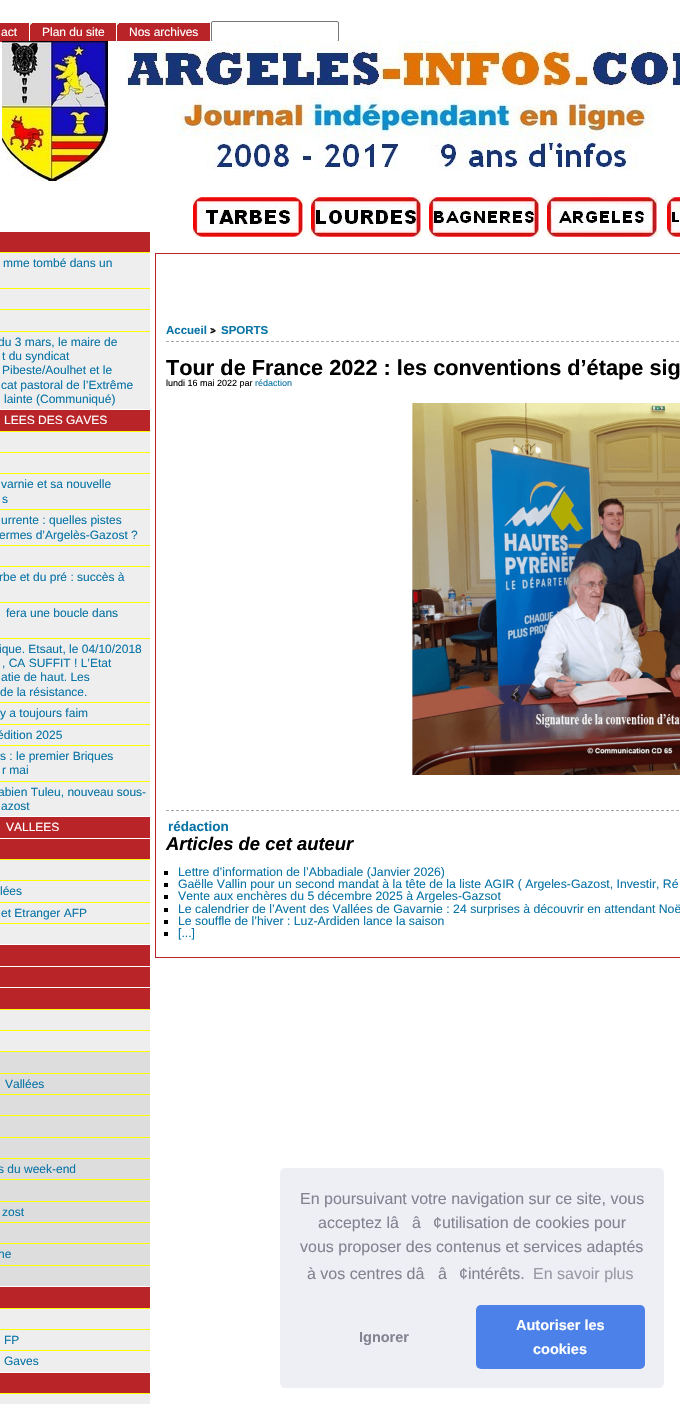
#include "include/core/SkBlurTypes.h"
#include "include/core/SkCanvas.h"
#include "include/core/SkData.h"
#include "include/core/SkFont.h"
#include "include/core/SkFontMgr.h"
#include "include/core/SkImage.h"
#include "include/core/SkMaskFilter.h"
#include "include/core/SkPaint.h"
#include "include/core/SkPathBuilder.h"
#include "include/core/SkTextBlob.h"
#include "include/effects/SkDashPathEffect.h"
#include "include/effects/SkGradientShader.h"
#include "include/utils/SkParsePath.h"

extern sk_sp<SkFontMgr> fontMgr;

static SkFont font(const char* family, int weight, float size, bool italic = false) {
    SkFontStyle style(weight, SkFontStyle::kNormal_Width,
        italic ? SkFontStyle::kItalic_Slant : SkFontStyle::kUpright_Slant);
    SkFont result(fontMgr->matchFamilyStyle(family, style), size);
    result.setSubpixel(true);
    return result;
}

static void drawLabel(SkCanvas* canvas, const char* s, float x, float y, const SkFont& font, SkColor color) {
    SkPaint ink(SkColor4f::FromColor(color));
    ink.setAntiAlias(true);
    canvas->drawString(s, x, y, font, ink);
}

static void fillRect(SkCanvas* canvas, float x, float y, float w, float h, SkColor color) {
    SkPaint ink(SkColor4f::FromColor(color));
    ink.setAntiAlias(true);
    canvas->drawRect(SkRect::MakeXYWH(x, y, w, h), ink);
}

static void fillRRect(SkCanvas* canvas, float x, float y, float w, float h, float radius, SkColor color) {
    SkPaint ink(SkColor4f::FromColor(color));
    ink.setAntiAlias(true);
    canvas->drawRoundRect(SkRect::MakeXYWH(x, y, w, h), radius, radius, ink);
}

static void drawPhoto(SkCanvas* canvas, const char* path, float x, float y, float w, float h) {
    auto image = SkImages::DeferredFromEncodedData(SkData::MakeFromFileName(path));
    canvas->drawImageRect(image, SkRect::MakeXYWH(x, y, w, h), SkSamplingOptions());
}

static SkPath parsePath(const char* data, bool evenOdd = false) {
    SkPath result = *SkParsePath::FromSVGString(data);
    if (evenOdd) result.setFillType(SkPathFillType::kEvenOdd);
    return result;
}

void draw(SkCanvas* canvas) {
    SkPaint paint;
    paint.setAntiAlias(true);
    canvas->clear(0xFFFFFFFF);
    fillRect(canvas, 0, 23, 29, 19, 0xFFB82428);
    SkFont font1 = font("Liberation Sans", 400, 12);
    drawLabel(canvas, "act", 1, 36, font1, 0xFFFFFFFF);
    fillRect(canvas, 30, 23, 86, 18, 0xFFB82428);
    drawPhoto(canvas, "assets/img1.png", 30, 23, 2, 2);
    drawLabel(canvas, "Plan du site", 42, 36, font1, 0xFFFFFFFF);
    fillRect(canvas, 117, 23, 93, 18, 0xFFB82428);
    drawPhoto(canvas, "assets/img1.png", 117, 23, 2, 2);
    drawLabel(canvas, "Nos archives", 129, 36, font1, 0xFFFFFFFF);
    paint.setStroke(true);
    paint.setStrokeWidth(1);
    paint.setColor(0xFF767676);
    canvas->drawRoundRect(SkRect::MakeXYWH(211.5f, 21.5f, 127, 20), 1.5f, 1.5f, paint);
    fillRect(canvas, 0, 232, 150, 20, 0xFFB82428);
    fillRect(canvas, 0, 252, 150, 1, 0xFFFFFF00);
    fillRect(canvas, 0, 253, 150, 35, 0xFFEEEEEE);
    drawLabel(canvas, "mme tombé dans un", 3, 267, font1, 0xFF0A74A6);
    fillRect(canvas, 0, 288, 150, 1, 0xFFFFFF00);
    fillRect(canvas, 0, 289, 150, 20, 0xFFEEEEEE);
    fillRect(canvas, 0, 309, 150, 1, 0xFFFFFF00);
    fillRect(canvas, 0, 310, 150, 21, 0xFFEEEEEE);
    fillRect(canvas, 0, 331, 150, 1, 0xFFFFFF00);
    fillRect(canvas, 0, 332, 150, 77, 0xFFEEEEEE);
    drawLabel(canvas, "du 3 mars, le maire de", -2, 346, font1, 0xFF0A74A6);
    drawLabel(canvas, "t du syndicat", 2, 360, font1, 0xFF0A74A6);
    drawLabel(canvas, "Pibeste/Aoulhet et le", 2, 374, font1, 0xFF0A74A6);
    drawLabel(canvas, "cat pastoral de l’Extrême", 1, 389, font1, 0xFF0A74A6);
    drawLabel(canvas, "lainte (Communiqué)", 4, 403, font1, 0xFF0A74A6);
    fillRect(canvas, 0, 410, 150, 21, 0xFFB82428);
    drawLabel(canvas, "LEES DES GAVES", 4, 424, font1, 0xFFFFFFFF);
    fillRect(canvas, 0, 431, 150, 1, 0xFFFFFF00);
    fillRect(canvas, 0, 432, 150, 20, 0xFFEEEEEE);
    fillRect(canvas, 0, 452, 150, 1, 0xFFFFFF00);
    fillRect(canvas, 0, 453, 150, 20, 0xFFEEEEEE);
    fillRect(canvas, 0, 473, 150, 1, 0xFFFFFF00);
    fillRect(canvas, 0, 474, 150, 35, 0xFFEEEEEE);
    drawLabel(canvas, "varnie et sa nouvelle", 1, 488, font1, 0xFF0A74A6);
    drawLabel(canvas, "s", 2, 503, font1, 0xFF0A74A6);
    fillRect(canvas, 0, 509, 150, 1, 0xFFFFFF00);
    fillRect(canvas, 0, 510, 150, 35, 0xFFEEEEEE);
    drawLabel(canvas, "urrente : quelles pistes", 1, 524, font1, 0xFF0A74A6);
    drawLabel(canvas, "ermes d’Argelès-Gazost ?", -1, 539, font1, 0xFF0A74A6);
    fillRect(canvas, 0, 545, 150, 1, 0xFFFFFF00);
    fillRect(canvas, 0, 546, 150, 20, 0xFFEEEEEE);
    fillRect(canvas, 0, 566, 150, 1, 0xFFFFFF00);
    fillRect(canvas, 0, 567, 150, 35, 0xFFEEEEEE);
    drawLabel(canvas, "rbe et du pré : succès à", -1, 581, font1, 0xFF0A74A6);
    fillRect(canvas, 0, 602, 150, 1, 0xFFFFFF00);
    fillRect(canvas, 0, 603, 150, 35, 0xFFEEEEEE);
    drawLabel(canvas, "fera une boucle dans", 6, 617, font1, 0xFF0A74A6);
    fillRect(canvas, 0, 638, 150, 1, 0xFFFFFF00);
    fillRect(canvas, 0, 639, 150, 63, 0xFFEEEEEE);
    drawLabel(canvas, "ique. Etsaut, le 04/10/2018", -1, 653, font1, 0xFF0A74A6);
    drawLabel(canvas, ", CA SUFFIT ! L’Etat", 2, 667, font1, 0xFF0A74A6);
    drawLabel(canvas, "atie de haut. Les", 1, 681, font1, 0xFF0A74A6);
    drawLabel(canvas, "de la résistance.", 0, 696, font1, 0xFF0A74A6);
    fillRect(canvas, 0, 702, 150, 1, 0xFFFFFF00);
    fillRect(canvas, 0, 703, 150, 21, 0xFFEEEEEE);
    drawLabel(canvas, "y a toujours faim", 0, 717, font1, 0xFF0A74A6);
    fillRect(canvas, 0, 724, 150, 1, 0xFFFFFF00);
    fillRect(canvas, 0, 725, 150, 20, 0xFFEEEEEE);
    drawLabel(canvas, "édition 2025", -3, 739, font1, 0xFF0A74A6);
    fillRect(canvas, 0, 745, 150, 1, 0xFFFFFF00);
    fillRect(canvas, 0, 746, 150, 35, 0xFFEEEEEE);
    drawLabel(canvas, "s : le premier Briques", 0, 760, font1, 0xFF0A74A6);
    drawLabel(canvas, "r mai", 2, 774, font1, 0xFF0A74A6);
    fillRect(canvas, 0, 781, 150, 1, 0xFFFFFF00);
    fillRect(canvas, 0, 782, 150, 34, 0xFFEEEEEE);
    drawLabel(canvas, "abien Tuleu, nouveau sous-", -2, 796, font1, 0xFF0A74A6);
    drawLabel(canvas, "azost", 1, 810, font1, 0xFF0A74A6);
    fillRect(canvas, 0, 817, 150, 21, 0xFFB82428);
    drawLabel(canvas, "VALLEES", 6, 831, font1, 0xFFFFFFFF);
    fillRect(canvas, 0, 839, 150, 20, 0xFFB82428);
    fillRect(canvas, 0, 859, 150, 1, 0xFFFFFF00);
    fillRect(canvas, 0, 860, 150, 20, 0xFFEEEEEE);
    fillRect(canvas, 0, 880, 150, 1, 0xFFFFFF00);
    fillRect(canvas, 0, 881, 150, 21, 0xFFEEEEEE);
    drawLabel(canvas, "lées", 0, 895, font1, 0xFF0A74A6);
    fillRect(canvas, 0, 902, 150, 1, 0xFFFFFF00);
    fillRect(canvas, 0, 903, 150, 20, 0xFFEEEEEE);
    drawLabel(canvas, "et Etranger AFP", 1, 917, font1, 0xFF0A74A6);
    fillRect(canvas, 0, 923, 150, 1, 0xFFFFFF00);
    fillRect(canvas, 0, 924, 150, 20, 0xFFEEEEEE);
    fillRect(canvas, 0, 945, 150, 21, 0xFFB82428);
    fillRect(canvas, 0, 967, 150, 20, 0xFFB82428);
    fillRect(canvas, 0, 988, 150, 21, 0xFFB82428);
    fillRect(canvas, 0, 1009, 150, 1, 0xFFFFFF00);
    fillRect(canvas, 0, 1010, 150, 20, 0xFFEEEEEE);
    fillRect(canvas, 0, 1030, 150, 1, 0xFFFFFF00);
    fillRect(canvas, 0, 1031, 150, 20, 0xFFEEEEEE);
    fillRect(canvas, 0, 1051, 150, 1, 0xFFFFFF00);
    fillRect(canvas, 0, 1052, 150, 21, 0xFFDDDDDD);
    fillRect(canvas, 0, 1073, 150, 1, 0xFFFFFF00);
    fillRect(canvas, 0, 1074, 150, 20, 0xFFDDDDDD);
    drawLabel(canvas, "Vallées", 5, 1088, font1, 0xFF0A74A6);
    fillRect(canvas, 0, 1094, 150, 1, 0xFFFFFF00);
    fillRect(canvas, 0, 1095, 150, 20, 0xFFDDDDDD);
    fillRect(canvas, 0, 1115, 150, 1, 0xFFFFFF00);
    fillRect(canvas, 0, 1116, 150, 21, 0xFFDDDDDD);
    fillRect(canvas, 0, 1137, 150, 1, 0xFFFFFF00);
    fillRect(canvas, 0, 1138, 150, 20, 0xFFDDDDDD);
    fillRect(canvas, 0, 1158, 150, 1, 0xFFFFFF00);
    fillRect(canvas, 0, 1159, 150, 20, 0xFFDDDDDD);
    drawLabel(canvas, "s du week-end", -2, 1173, font1, 0xFF0A74A6);
    fillRect(canvas, 0, 1179, 150, 1, 0xFFFFFF00);
    fillRect(canvas, 0, 1180, 150, 21, 0xFFDDDDDD);
    fillRect(canvas, 0, 1201, 150, 1, 0xFFFFFF00);
    fillRect(canvas, 0, 1202, 150, 20, 0xFFDDDDDD);
    drawLabel(canvas, "zost", 2, 1216, font1, 0xFF0A74A6);
    fillRect(canvas, 0, 1222, 150, 1, 0xFFFFFF00);
    fillRect(canvas, 0, 1223, 150, 20, 0xFFDDDDDD);
    fillRect(canvas, 0, 1243, 150, 1, 0xFFFFFF00);
    fillRect(canvas, 0, 1244, 150, 21, 0xFFDDDDDD);
    drawLabel(canvas, "ne", -2, 1258, font1, 0xFF0A74A6);
    fillRect(canvas, 0, 1265, 150, 1, 0xFFFFFF00);
    fillRect(canvas, 0, 1266, 150, 20, 0xFFDDDDDD);
    fillRect(canvas, 0, 1287, 150, 21, 0xFFB82428);
    fillRect(canvas, 0, 1308, 150, 1, 0xFFFFFF00);
    fillRect(canvas, 0, 1309, 150, 20, 0xFFEEEEEE);
    fillRect(canvas, 0, 1329, 150, 1, 0xFFFFFF00);
    fillRect(canvas, 0, 1330, 150, 20, 0xFFEEEEEE);
    drawLabel(canvas, "FP", 4, 1344, font1, 0xFF0A74A6);
    fillRect(canvas, 0, 1350, 150, 1, 0xFFFFFF00);
    fillRect(canvas, 0, 1351, 150, 21, 0xFFEEEEEE);
    drawLabel(canvas, "Gaves", 4, 1365, font1, 0xFF0A74A6);
    fillRect(canvas, 0, 1373, 150, 20, 0xFFB82428);
    fillRect(canvas, 0, 1393, 150, 1, 0xFFFFFF00);
    fillRect(canvas, 0, 1394, 150, 10, 0xFFEEEEEE);
    drawPhoto(canvas, "assets/img2.png", 2, 41, 678, 140);
    drawPhoto(canvas, "assets/img3.png", 193, 197, 110, 40);
    drawPhoto(canvas, "assets/img4.png", 311, 197, 110, 40);
    drawPhoto(canvas, "assets/img5.png", 429, 197, 110, 40);
    drawPhoto(canvas, "assets/img6.png", 547, 197, 110, 40);
    drawPhoto(canvas, "assets/img7.png", 667, 197, 13, 40);
    paint.setColor(0xFFB82428);
    canvas->drawRect(SkRect::MakeXYWH(155.5f, 253.5f, 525, 704), paint);
    SkFont font2 = font("Liberation Sans", 700, 11.5f);
    drawLabel(canvas, "Accueil", 166, 334, font2, 0xFF0A74A6);
    fillRect(canvas, 211, 328, 3, 5, 0xFFA7A7A7);
    SkFont font3 = font("Liberation Sans", 700, 10);
    drawLabel(canvas, ">", 210, 334, font3, 0xFF000000);
    drawLabel(canvas, "SPORTS", 221, 334, font2, 0xFF0A74A6);
    paint.setColor(0xFFAAAAAA);
    paint.setPathEffect(SkDashPathEffect::Make({{3, 2}}, 0));
    canvas->drawPath(parsePath("M166 341.5H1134"), paint);
    paint.setPathEffect(nullptr);
    SkFont font4 = font("Liberation Sans", 700, 21.75f);
    drawLabel(canvas, "Tour de France 2022 : les conventions d’étape sig", 166, 375, font4, 0xFF000000);
    SkFont font5 = font("Liberation Sans", 400, 9);
    drawLabel(canvas, "lundi 16 mai 2022 par", 166, 386, font5, 0xFF000000);
    drawLabel(canvas, "rédaction", 255, 386, font5, 0xFF0A74A6);
    drawPhoto(canvas, "assets/img8.png", 412, 403, 268, 372);
    paint.setPathEffect(SkDashPathEffect::Make({{3, 2}}, 0));
    canvas->drawPath(parsePath("M166 810.5H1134"), paint);
    paint.setPathEffect(nullptr);
    SkFont font6 = font("Liberation Sans", 700, 13.5f);
    drawLabel(canvas, "rédaction", 168, 831, font6, 0xFF0A74A6);
    SkFont font7 = font("Liberation Sans", 700, 18.4f, true);
    drawLabel(canvas, "Articles de cet auteur", 166, 850, font7, 0xFF000000);
    fillRect(canvas, 164, 871, 4, 4, 0xFF000000);
    SkFont font8 = font("Liberation Sans", 400, 12.25f);
    drawLabel(canvas, "Lettre d’information de l’Abbadiale (Janvier 2026)", 178, 876, font8, 0xFF0A74A6);
    fillRect(canvas, 164, 883, 4, 4, 0xFF000000);
    drawLabel(canvas, "Gaëlle Vallin pour un second mandat à la tête de la liste AGIR ( Argeles-Gazost, Investir, Ré", 178, 888, font8, 0xFF0A74A6);
    fillRect(canvas, 164, 895, 4, 4, 0xFF000000);
    drawLabel(canvas, "Vente aux enchères du 5 décembre 2025 à Argeles-Gazsot", 178, 900, font8, 0xFF0A74A6);
    fillRect(canvas, 164, 908, 4, 4, 0xFF000000);
    drawLabel(canvas, "Le calendrier de l’Avent des Vallées de Gavarnie : 24 surprises à découvrir en attendant Noë", 178, 913, font8, 0xFF0A74A6);
    fillRect(canvas, 164, 920, 4, 4, 0xFF000000);
    drawLabel(canvas, "Le souffle de l’hiver : Luz-Ardiden lance la saison", 178, 925, font8, 0xFF0A74A6);
    fillRect(canvas, 164, 932, 4, 4, 0xFF000000);
    drawLabel(canvas, "[...]", 178, 937, font8, 0xFF0A74A6);
    fillRRect(canvas, 280, 1168, 384, 220, 5, 0xFFEDEFF5);
    SkFont font9 = font("Liberation Sans", 400, 16);
    drawLabel(canvas, "En poursuivant votre navigation sur ce site, vous", 300, 1204, font9, 0xFF838391);
    drawLabel(canvas, "acceptez lâ", 318, 1228, font9, 0xFF838391);
    drawLabel(canvas, "â", 412, 1228, font9, 0xFF838391);
    drawLabel(canvas, "¢utilisation de cookies pour", 433, 1228, font9, 0xFF838391);
    drawLabel(canvas, "vous proposer des contenus et services adaptés", 300, 1252, font9, 0xFF838391);
    drawLabel(canvas, "à vos centres dâ", 307, 1279, font9, 0xFF838391);
    drawLabel(canvas, "â", 438, 1279, font9, 0xFF838391);
    drawLabel(canvas, "¢intérêts.", 459, 1279, font9, 0xFF838391);
    drawLabel(canvas, "En savoir plus", 533, 1279, font9, 0xFF9899A5);
    SkFont font10 = font("Liberation Sans", 700, 14.5f);
    drawLabel(canvas, "Ignorer", 359, 1342, font10, 0xFF838391);
    fillRRect(canvas, 476, 1305, 169, 64, 5, 0xFF4B81E8);
    drawLabel(canvas, "Autoriser les", 516, 1330, font10, 0xFFFFFFFF);
    drawLabel(canvas, "cookies", 533, 1354, font10, 0xFFFFFFFF);
}
